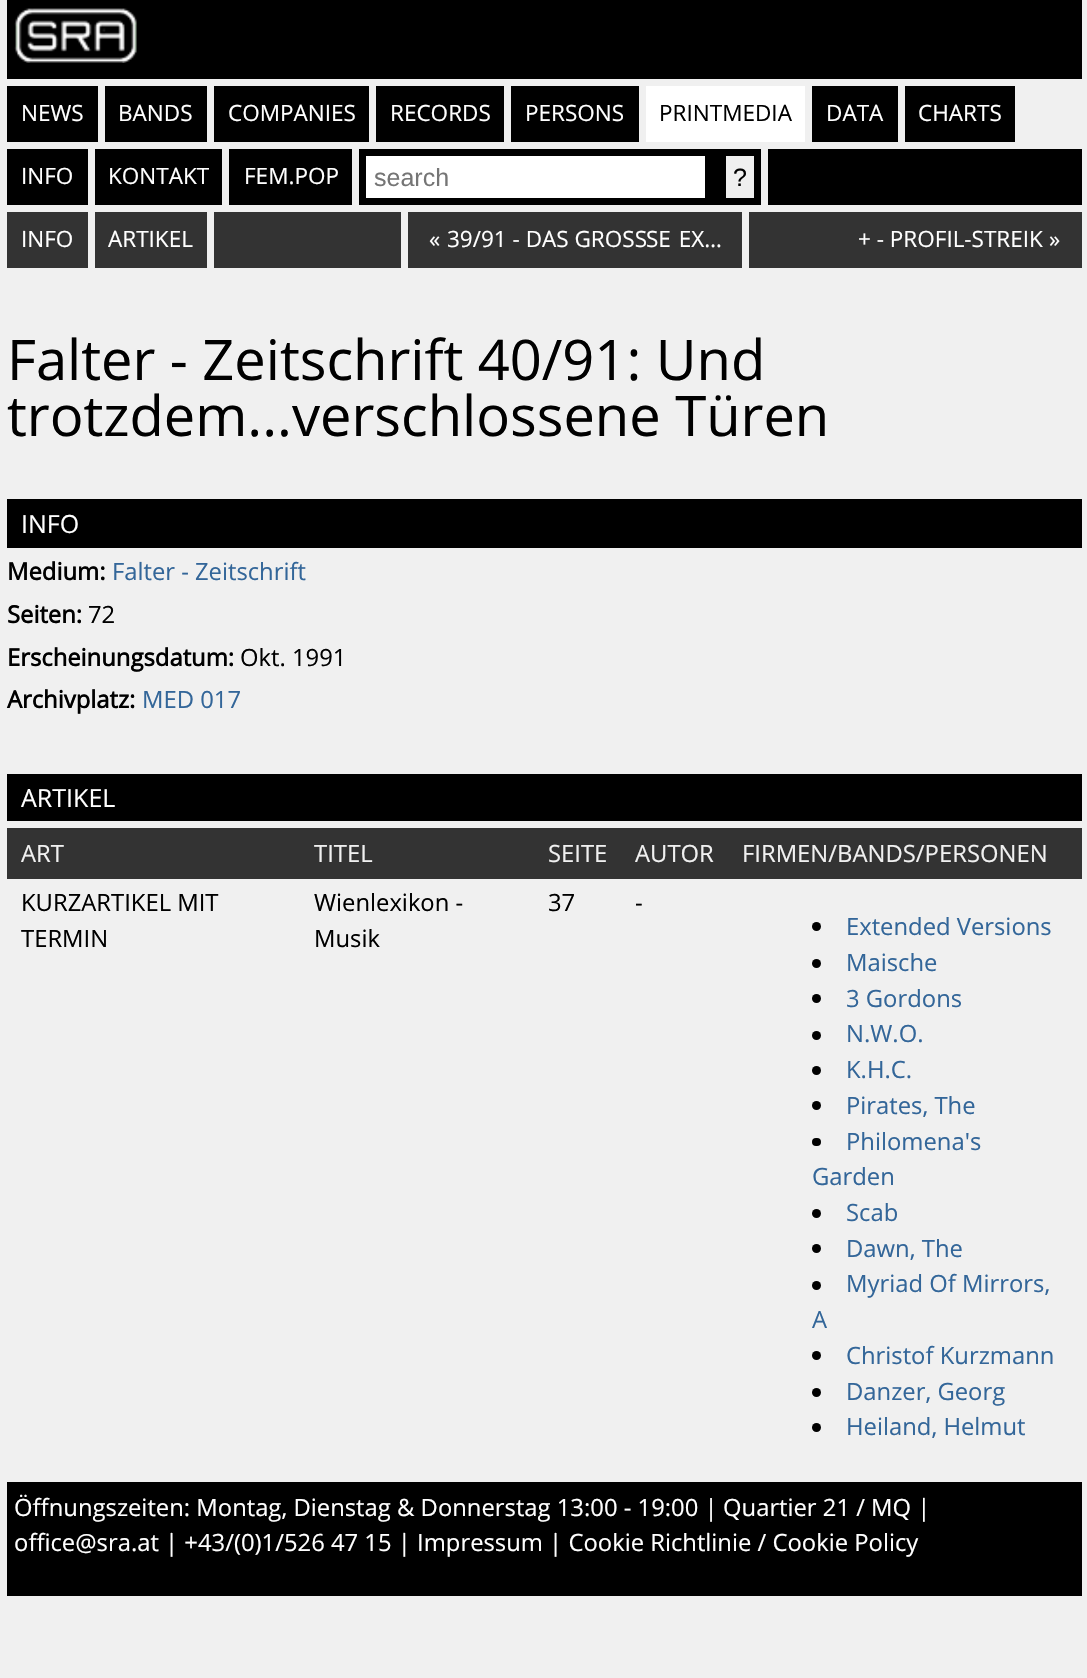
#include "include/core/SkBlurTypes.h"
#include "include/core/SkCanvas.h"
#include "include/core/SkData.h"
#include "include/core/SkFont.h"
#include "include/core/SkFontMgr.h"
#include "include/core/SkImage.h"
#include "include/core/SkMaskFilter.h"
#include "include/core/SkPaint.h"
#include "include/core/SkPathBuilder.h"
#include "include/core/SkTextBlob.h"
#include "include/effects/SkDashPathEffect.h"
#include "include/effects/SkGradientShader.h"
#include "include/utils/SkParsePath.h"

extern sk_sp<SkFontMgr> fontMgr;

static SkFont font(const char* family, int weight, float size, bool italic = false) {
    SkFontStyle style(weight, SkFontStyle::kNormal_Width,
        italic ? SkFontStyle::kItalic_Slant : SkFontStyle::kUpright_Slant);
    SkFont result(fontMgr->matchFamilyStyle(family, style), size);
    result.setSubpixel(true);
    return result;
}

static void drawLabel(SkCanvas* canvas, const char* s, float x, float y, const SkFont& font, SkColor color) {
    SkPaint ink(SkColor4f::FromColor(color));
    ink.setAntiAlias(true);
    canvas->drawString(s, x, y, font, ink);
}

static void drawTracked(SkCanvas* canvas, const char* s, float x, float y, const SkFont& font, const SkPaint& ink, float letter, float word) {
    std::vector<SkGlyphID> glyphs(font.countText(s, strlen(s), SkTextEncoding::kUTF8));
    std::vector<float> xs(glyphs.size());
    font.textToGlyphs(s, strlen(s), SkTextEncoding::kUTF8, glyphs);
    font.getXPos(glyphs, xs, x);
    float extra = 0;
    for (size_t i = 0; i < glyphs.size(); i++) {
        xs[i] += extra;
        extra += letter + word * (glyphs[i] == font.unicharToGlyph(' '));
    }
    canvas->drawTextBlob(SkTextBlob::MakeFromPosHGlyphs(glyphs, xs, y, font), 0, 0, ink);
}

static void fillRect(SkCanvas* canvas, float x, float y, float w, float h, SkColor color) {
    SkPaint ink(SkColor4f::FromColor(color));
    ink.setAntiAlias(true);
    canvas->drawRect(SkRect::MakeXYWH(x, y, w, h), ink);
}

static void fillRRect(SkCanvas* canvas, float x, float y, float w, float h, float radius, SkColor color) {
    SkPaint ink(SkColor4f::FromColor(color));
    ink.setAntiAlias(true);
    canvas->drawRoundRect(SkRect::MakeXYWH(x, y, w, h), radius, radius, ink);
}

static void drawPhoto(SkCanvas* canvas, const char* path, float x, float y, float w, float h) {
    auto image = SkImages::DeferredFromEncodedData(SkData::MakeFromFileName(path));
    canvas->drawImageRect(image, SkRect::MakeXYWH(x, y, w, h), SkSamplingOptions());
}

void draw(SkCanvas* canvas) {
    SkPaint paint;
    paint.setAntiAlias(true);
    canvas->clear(0xFFF0F0F0);
    fillRect(canvas, 7, 0, 1075, 79, 0xFF000000);
    drawPhoto(canvas, "assets/img1.png", 14, 8, 123, 55);
    fillRect(canvas, 7, 86, 91, 56, 0xFF000000);
    SkFont font1 = font("Open Sans", 400, 22.5f);
    drawLabel(canvas, "NEWS", 21, 121, font1, 0xFFFFFFFF);
    fillRect(canvas, 105, 86, 102, 56, 0xFF000000);
    drawLabel(canvas, "BANDS", 118, 121, font1, 0xFFFFFFFF);
    fillRect(canvas, 214, 86, 155, 56, 0xFF000000);
    drawLabel(canvas, "COMPANIES", 228, 121, font1, 0xFFFFFFFF);
    fillRect(canvas, 376, 86, 128, 56, 0xFF000000);
    drawLabel(canvas, "RECORDS", 390, 121, font1, 0xFFFFFFFF);
    fillRect(canvas, 511, 86, 128, 56, 0xFF000000);
    drawLabel(canvas, "PERSONS", 525, 121, font1, 0xFFFFFFFF);
    fillRect(canvas, 646, 86, 159, 56, 0xFFFFFFFF);
    drawLabel(canvas, "PRINTMEDIA", 659, 121, font1, 0xFF000000);
    fillRect(canvas, 812, 86, 86, 56, 0xFF000000);
    drawLabel(canvas, "DATA", 826, 121, font1, 0xFFFFFFFF);
    fillRect(canvas, 905, 86, 110, 56, 0xFF000000);
    drawLabel(canvas, "CHARTS", 918, 121, font1, 0xFFFFFFFF);
    fillRect(canvas, 7, 149, 81, 56, 0xFF000000);
    drawLabel(canvas, "INFO", 21, 184, font1, 0xFFFFFFFF);
    fillRect(canvas, 95, 149, 127, 56, 0xFF000000);
    drawLabel(canvas, "KONTAKT", 108, 184, font1, 0xFFFFFFFF);
    fillRect(canvas, 229, 149, 123, 56, 0xFF000000);
    drawLabel(canvas, "FEM.POP", 244, 184, font1, 0xFFFFFFFF);
    fillRect(canvas, 359, 149, 402, 56, 0xFF000000);
    fillRect(canvas, 366, 156, 339, 42, 0xFFFFFFFF);
    SkFont font2 = font("Liberation Sans", 400, 25);
    drawLabel(canvas, "search", 374, 186, font2, 0xFF757575);
    fillRect(canvas, 726, 156, 28, 42, 0xFFEFEFEF);
    drawLabel(canvas, "?", 733, 186, font2, 0xFF000000);
    fillRect(canvas, 768, 149, 314, 56, 0xFF000000);
    fillRect(canvas, 7, 212, 81, 56, 0xFF333333);
    drawLabel(canvas, "INFO", 21, 247, font1, 0xFFFFFFFF);
    fillRect(canvas, 95, 212, 112, 56, 0xFF333333);
    drawLabel(canvas, "ARTIKEL", 108, 247, font1, 0xFFFFFFFF);
    fillRect(canvas, 214, 212, 187, 56, 0xFF333333);
    fillRect(canvas, 408, 212, 334, 56, 0xFF333333);
    drawLabel(canvas, "«", 429, 247, font1, 0xFFFFFFFF);
    drawLabel(canvas, "39/91 - DAS GROSS", 447, 247, font1, 0xFFFFFFFF);
    paint.setColor(0xFFFFFFFF);
    drawTracked(canvas, "SE EX…", 646, 247, font1, paint, 0, 2);
    fillRect(canvas, 749, 212, 333, 56, 0xFF333333);
    drawLabel(canvas, "+ - PROFIL-STREIK", 858, 247, font1, 0xFFFFFFFF);
    drawLabel(canvas, "»", 1049, 247, font1, 0xFFFFFFFF);
    SkFont font3 = font("Open Sans", 400, 56);
    drawLabel(canvas, "Falter - Zeitschrift 40/91: Und", 7, 380, font3, 0xFF000000);
    drawLabel(canvas, "trotzdem...verschlossene Türen", 7, 436, font3, 0xFF000000);
    fillRect(canvas, 7, 499, 1075, 49, 0xFF000000);
    SkFont font4 = font("Open Sans", 400, 25);
    drawLabel(canvas, "INFO", 21, 533, font4, 0xFFFFFFFF);
    SkFont font5 = font("Open Sans", 700, 23.8f);
    drawLabel(canvas, "Medium:", 7, 580, font5, 0xFF000000);
    SkFont font6 = font("Open Sans", 400, 23.8f);
    drawLabel(canvas, "Falter - Zeitschrift", 112, 580, font6, 0xFF336699);
    drawLabel(canvas, "Seiten:", 7, 623, font5, 0xFF000000);
    drawLabel(canvas, "72", 88, 623, font6, 0xFF000000);
    drawLabel(canvas, "Erscheinungsdatum:", 7, 666, font5, 0xFF000000);
    drawLabel(canvas, "Okt. 1991", 240, 666, font6, 0xFF000000);
    drawLabel(canvas, "Archivplatz:", 7, 708, font5, 0xFF000000);
    drawLabel(canvas, "MED 017", 142, 708, font6, 0xFF336699);
    fillRect(canvas, 7, 774, 1075, 47, 0xFF000000);
    drawLabel(canvas, "ARTIKEL", 21, 807, font4, 0xFFFFFFFF);
    fillRect(canvas, 7, 828, 1075, 51, 0xFF333333);
    drawLabel(canvas, "ART", 21, 862, font6, 0xFFF0F0F0);
    drawLabel(canvas, "TITEL", 314, 862, font6, 0xFFF0F0F0);
    drawLabel(canvas, "SEITE", 548, 862, font6, 0xFFF0F0F0);
    drawLabel(canvas, "AUTOR", 635, 862, font6, 0xFFF0F0F0);
    drawLabel(canvas, "FIRMEN/BANDS/PERSONEN", 742, 862, font6, 0xFFF0F0F0);
    drawLabel(canvas, "KURZARTIKEL MIT", 21, 911, font6, 0xFF000000);
    drawLabel(canvas, "TERMIN", 21, 947, font6, 0xFF000000);
    drawLabel(canvas, "Wienlexikon -", 314, 911, font6, 0xFF000000);
    drawLabel(canvas, "Musik", 314, 947, font6, 0xFF000000);
    drawLabel(canvas, "37", 548, 911, font6, 0xFF000000);
    drawLabel(canvas, "-", 635, 911, font6, 0xFF000000);
    paint.setColor(0xFF000000);
    canvas->drawCircle(816.5f, 926.5f, 4.5f, paint);
    drawLabel(canvas, "Extended Versions", 846, 935, font6, 0xFF336699);
    canvas->drawCircle(816.5f, 963.5f, 4.5f, paint);
    drawLabel(canvas, "Maische", 846, 971, font6, 0xFF336699);
    canvas->drawCircle(816.5f, 998.5f, 4.5f, paint);
    drawLabel(canvas, "3 Gordons", 846, 1007, font6, 0xFF336699);
    canvas->drawCircle(816.5f, 1035.5f, 4.5f, paint);
    drawLabel(canvas, "N.W.O.", 846, 1042, font6, 0xFF336699);
    canvas->drawCircle(816.5f, 1070.5f, 4.5f, paint);
    drawLabel(canvas, "K.H.C.", 846, 1078, font6, 0xFF336699);
    canvas->drawCircle(816.5f, 1105.5f, 4.5f, paint);
    drawLabel(canvas, "Pirates, The", 846, 1114, font6, 0xFF336699);
    fillRRect(canvas, 812, 1138, 9, 8, 4, 0xFF000000);
    drawLabel(canvas, "Philomena's", 846, 1150, font6, 0xFF336699);
    drawLabel(canvas, "Garden", 812, 1185, font6, 0xFF336699);
    canvas->drawCircle(816.5f, 1213.5f, 4.5f, paint);
    drawLabel(canvas, "Scab", 846, 1221, font6, 0xFF336699);
    canvas->drawCircle(816.5f, 1248.5f, 4.5f, paint);
    drawLabel(canvas, "Dawn, The", 846, 1257, font6, 0xFF336699);
    canvas->drawCircle(816.5f, 1285.5f, 4.5f, paint);
    drawLabel(canvas, "Myriad Of Mirrors,", 846, 1292, font6, 0xFF336699);
    drawLabel(canvas, "A", 812, 1328, font6, 0xFF336699);
    canvas->drawCircle(816.5f, 1355.5f, 4.5f, paint);
    drawLabel(canvas, "Christof Kurzmann", 846, 1364, font6, 0xFF336699);
    canvas->drawCircle(816.5f, 1392.5f, 4.5f, paint);
    drawLabel(canvas, "Danzer, Georg", 846, 1400, font6, 0xFF336699);
    canvas->drawCircle(816.5f, 1427.5f, 4.5f, paint);
    drawLabel(canvas, "Heiland, Helmut", 846, 1435, font6, 0xFF336699);
    fillRect(canvas, 7, 1482, 1075, 114, 0xFF000000);
    drawLabel(canvas, "Öffnungszeiten: Montag, Dienstag & Donnerstag 13:00 - 19:00 |", 14, 1516, font6, 0xFFFFFFFF);
    drawLabel(canvas, "Quartier 21 / MQ |", 723, 1516, font6, 0xFFFFFFFF);
    drawLabel(canvas, "office@sra.at | +43/(0)1/526 47 15 | Impressum | Cookie Richtlinie / Cookie Policy", 14, 1551, font6, 0xFFFFFFFF);
}
